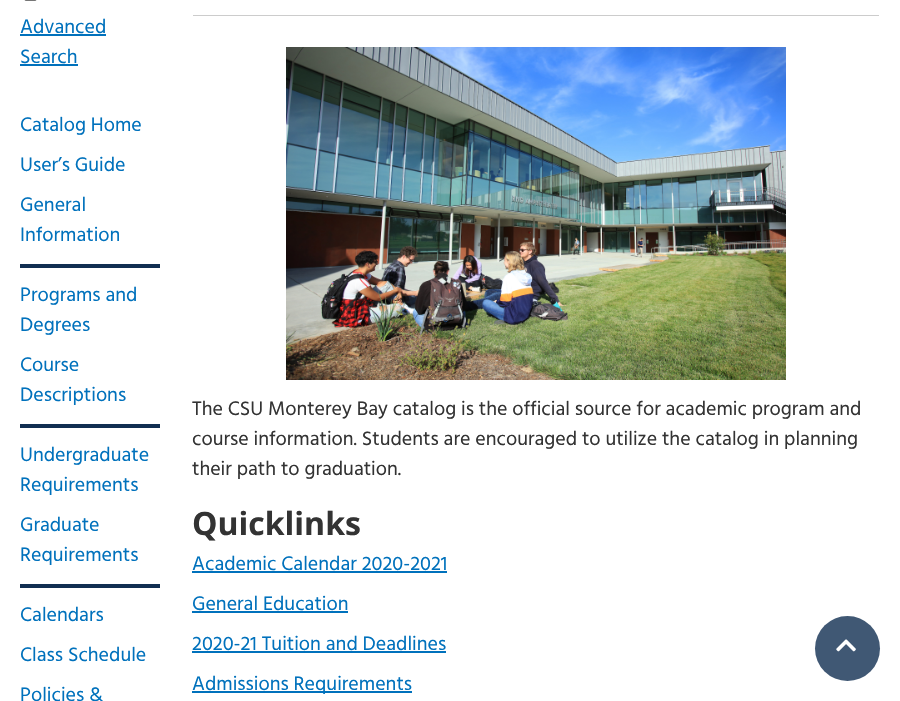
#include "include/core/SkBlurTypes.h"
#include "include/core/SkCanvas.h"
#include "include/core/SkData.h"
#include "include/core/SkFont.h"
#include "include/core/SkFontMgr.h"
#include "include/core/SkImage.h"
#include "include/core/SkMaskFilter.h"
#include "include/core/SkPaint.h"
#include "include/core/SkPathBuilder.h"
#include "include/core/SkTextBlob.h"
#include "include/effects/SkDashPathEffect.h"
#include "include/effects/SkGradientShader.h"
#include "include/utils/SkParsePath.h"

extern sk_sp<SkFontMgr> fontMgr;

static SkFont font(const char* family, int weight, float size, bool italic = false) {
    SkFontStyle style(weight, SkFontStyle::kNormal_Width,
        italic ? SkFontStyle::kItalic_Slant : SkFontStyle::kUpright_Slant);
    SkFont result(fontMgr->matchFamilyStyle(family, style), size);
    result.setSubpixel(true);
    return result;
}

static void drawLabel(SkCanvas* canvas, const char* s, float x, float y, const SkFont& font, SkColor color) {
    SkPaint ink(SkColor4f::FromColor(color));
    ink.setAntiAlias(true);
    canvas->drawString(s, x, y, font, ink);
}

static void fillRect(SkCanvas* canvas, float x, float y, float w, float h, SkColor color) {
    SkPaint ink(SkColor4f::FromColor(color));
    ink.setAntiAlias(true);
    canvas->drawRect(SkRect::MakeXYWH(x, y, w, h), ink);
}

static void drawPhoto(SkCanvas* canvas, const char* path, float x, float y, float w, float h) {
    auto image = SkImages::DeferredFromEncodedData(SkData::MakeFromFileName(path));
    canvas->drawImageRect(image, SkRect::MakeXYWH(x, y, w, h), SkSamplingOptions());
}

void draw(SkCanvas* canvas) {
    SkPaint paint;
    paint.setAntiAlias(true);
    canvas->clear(0xFFFFFFFF);
    paint.setStroke(true);
    paint.setStrokeWidth(1);
    paint.setColor(0xFF767676);
    canvas->drawRoundRect(SkRect::MakeXYWH(24.5f, -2.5f, 12, 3), 1.5f, 1.5f, paint);
    SkFont font1 = font("Hind", 400, 20);
    drawLabel(canvas, "Advanced", 20, 33, font1, 0xFF0071BC);
    fillRect(canvas, 20, 34, 86, 2, 0xFF0071BC);
    drawLabel(canvas, "Search", 20, 63, font1, 0xFF0071BC);
    fillRect(canvas, 20, 64, 58, 2, 0xFF0071BC);
    drawLabel(canvas, "Catalog Home", 20, 131, font1, 0xFF0071BC);
    drawLabel(canvas, "User’s Guide", 20, 171, font1, 0xFF0071BC);
    drawLabel(canvas, "General", 20, 211, font1, 0xFF0071BC);
    drawLabel(canvas, "Information", 20, 241, font1, 0xFF0071BC);
    fillRect(canvas, 20, 264, 140, 4, 0xFF112E51);
    drawLabel(canvas, "Programs and", 20, 301, font1, 0xFF0071BC);
    drawLabel(canvas, "Degrees", 20, 331, font1, 0xFF0071BC);
    drawLabel(canvas, "Course", 20, 371, font1, 0xFF0071BC);
    drawLabel(canvas, "Descriptions", 20, 401, font1, 0xFF0071BC);
    fillRect(canvas, 20, 424, 140, 4, 0xFF112E51);
    drawLabel(canvas, "Undergraduate", 20, 461, font1, 0xFF0071BC);
    drawLabel(canvas, "Requirements", 20, 491, font1, 0xFF0071BC);
    drawLabel(canvas, "Graduate", 20, 531, font1, 0xFF0071BC);
    drawLabel(canvas, "Requirements", 20, 561, font1, 0xFF0071BC);
    fillRect(canvas, 20, 584, 140, 4, 0xFF112E51);
    drawLabel(canvas, "Calendars", 20, 621, font1, 0xFF0071BC);
    drawLabel(canvas, "Class Schedule", 20, 661, font1, 0xFF0071BC);
    drawLabel(canvas, "Policies &", 20, 701, font1, 0xFF0071BC);
    fillRect(canvas, 193, 15, 686, 1, 0xFFCCCCCC);
    drawPhoto(canvas, "assets/img1.png", 286, 47, 500, 333);
    drawLabel(canvas, "The CSU Monterey Bay catalog is the official source for academic program and", 192, 415, font1, 0xFF333333);
    drawLabel(canvas, "course information. Students are encouraged to utilize the catalog in planning", 192, 445, font1, 0xFF333333);
    drawLabel(canvas, "their path to graduation.", 192, 475, font1, 0xFF333333);
    SkFont font2 = font("Open Sans", 700, 32);
    drawLabel(canvas, "Quicklinks", 192, 535, font2, 0xFF333333);
    drawLabel(canvas, "Academic Calendar 2020-2021", 192, 570, font1, 0xFF0071BC);
    fillRect(canvas, 192, 571, 255, 2, 0xFF0071BC);
    drawLabel(canvas, "General Education", 192, 610, font1, 0xFF0071BC);
    fillRect(canvas, 192, 611, 156, 2, 0xFF0071BC);
    drawLabel(canvas, "2020-21 Tuition and Deadlines", 192, 650, font1, 0xFF0071BC);
    fillRect(canvas, 192, 651, 254, 2, 0xFF0071BC);
    fillRect(canvas, 192, 691, 220, 2, 0xFF0071BC);
    drawLabel(canvas, "Admissions Requirements", 192, 690, font1, 0xFF0071BC);
    paint.setStroke(false);
    paint.setColor(0xFF405874);
    canvas->drawCircle(847.5f, 648.5f, 32.5f, paint);
    drawPhoto(canvas, "assets/img2.png", 836, 639, 20, 13);
}
